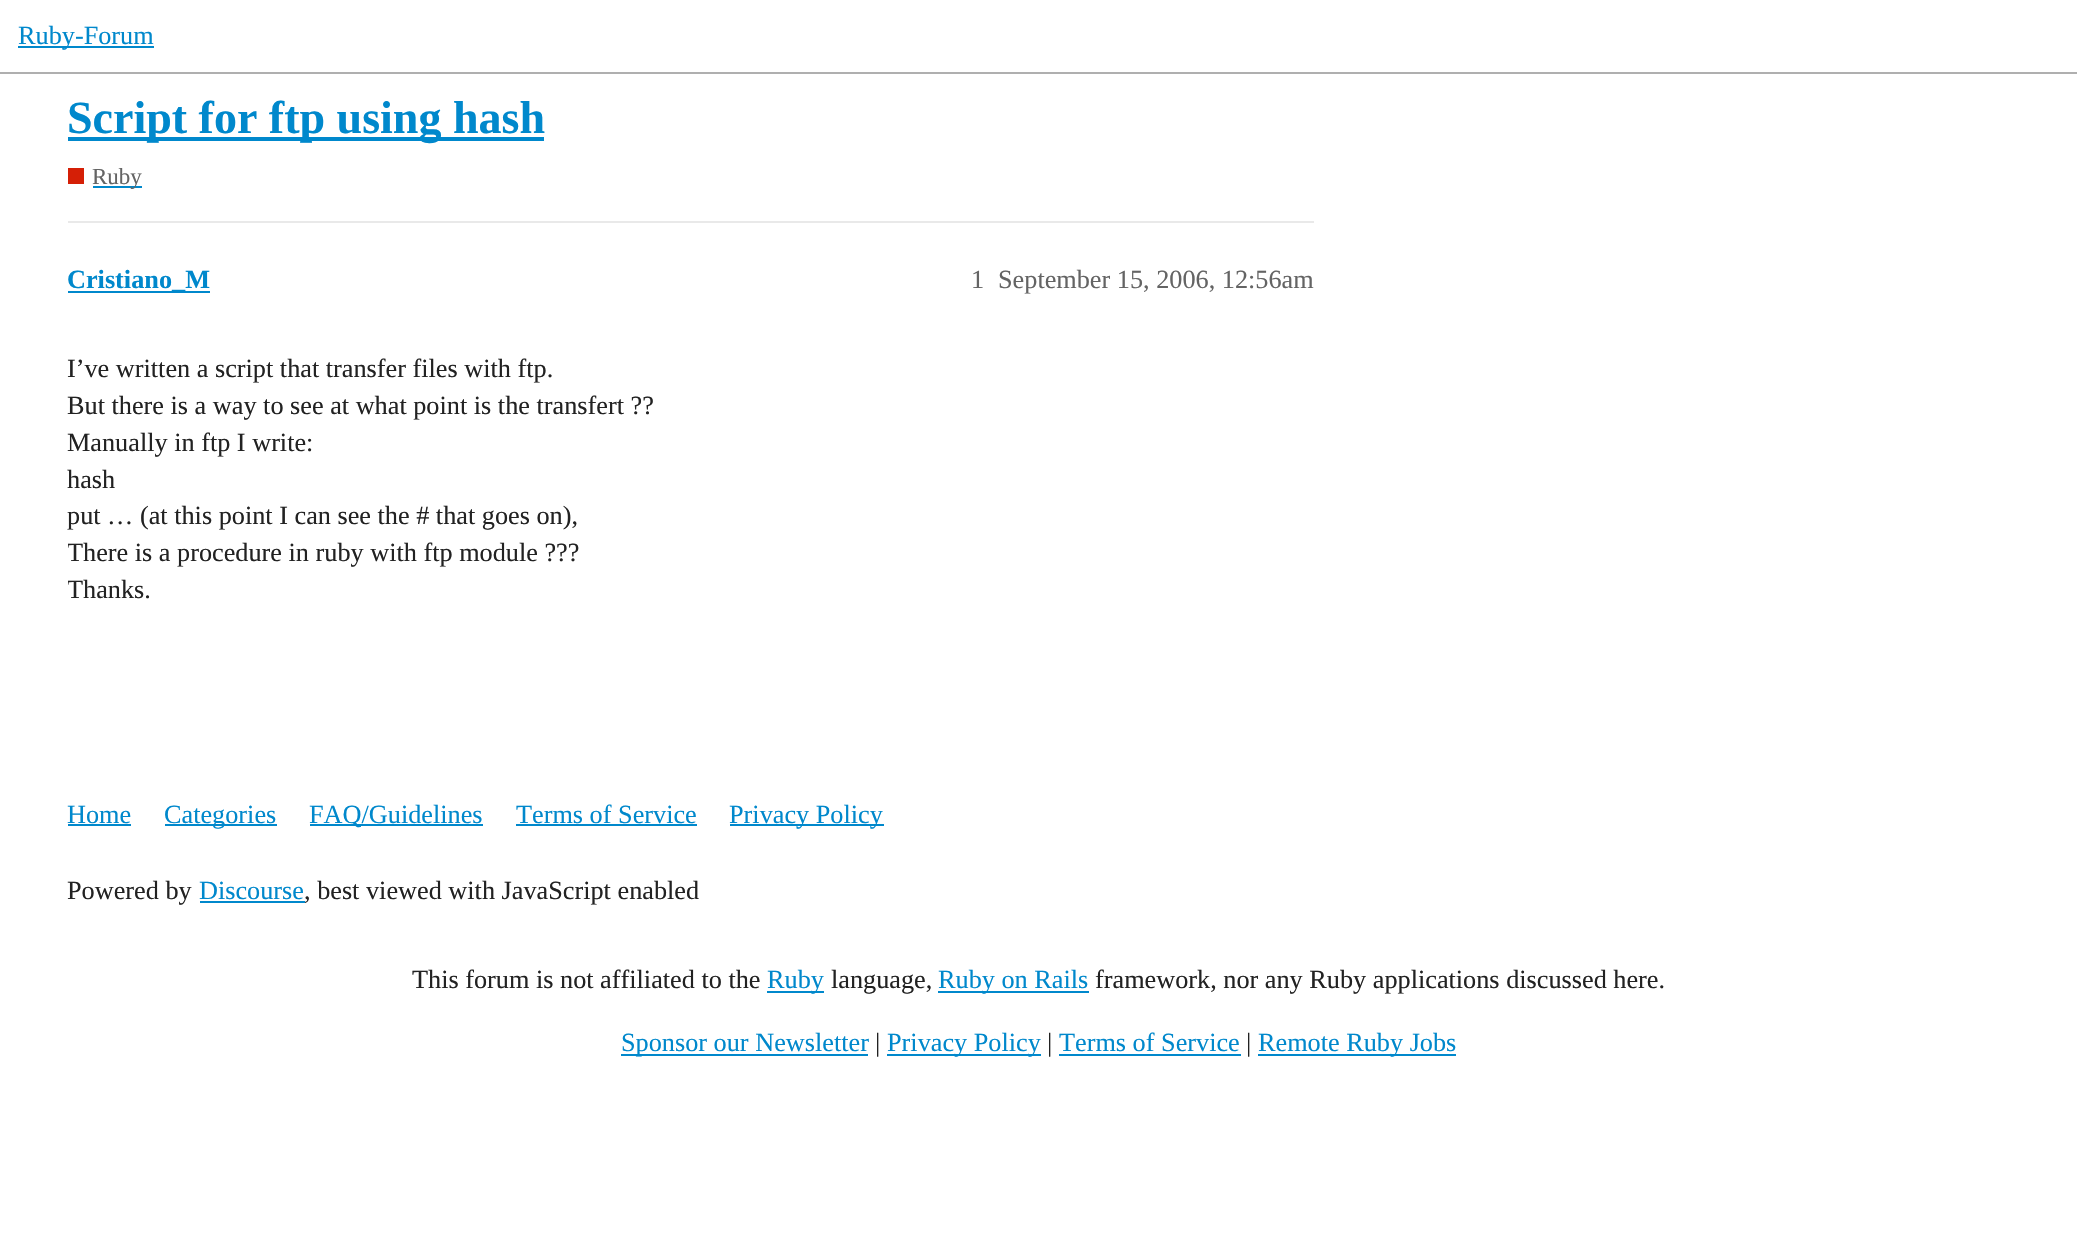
#include "include/core/SkBlurTypes.h"
#include "include/core/SkCanvas.h"
#include "include/core/SkData.h"
#include "include/core/SkFont.h"
#include "include/core/SkFontMgr.h"
#include "include/core/SkImage.h"
#include "include/core/SkMaskFilter.h"
#include "include/core/SkPaint.h"
#include "include/core/SkPathBuilder.h"
#include "include/core/SkTextBlob.h"
#include "include/effects/SkDashPathEffect.h"
#include "include/effects/SkGradientShader.h"
#include "include/utils/SkParsePath.h"

extern sk_sp<SkFontMgr> fontMgr;

static SkFont font(const char* family, int weight, float size, bool italic = false) {
    SkFontStyle style(weight, SkFontStyle::kNormal_Width,
        italic ? SkFontStyle::kItalic_Slant : SkFontStyle::kUpright_Slant);
    SkFont result(fontMgr->matchFamilyStyle(family, style), size);
    result.setSubpixel(true);
    return result;
}

static void drawLabel(SkCanvas* canvas, const char* s, float x, float y, const SkFont& font, SkColor color) {
    SkPaint ink(SkColor4f::FromColor(color));
    ink.setAntiAlias(true);
    canvas->drawString(s, x, y, font, ink);
}

static void fillRect(SkCanvas* canvas, float x, float y, float w, float h, SkColor color) {
    SkPaint ink(SkColor4f::FromColor(color));
    ink.setAntiAlias(true);
    canvas->drawRect(SkRect::MakeXYWH(x, y, w, h), ink);
}

void draw(SkCanvas* canvas) {
    SkPaint paint;
    paint.setAntiAlias(true);
    canvas->clear(0xFFFFFFFF);
    fillRect(canvas, 0, 72, 2077, 2, 0xFFAFAFAF);
    fillRect(canvas, 18, 46, 136, 2, 0xFF0088CC);
    SkFont font1 = font("Liberation Serif", 400, 26.25f);
    drawLabel(canvas, "Ruby-Forum", 18, 44, font1, 0xFF0088CC);
    fillRect(canvas, 68, 137, 476, 4, 0xFF0088CC);
    SkFont font2 = font("Liberation Serif", 700, 46);
    drawLabel(canvas, "Script for ftp using hash", 67, 133, font2, 0xFF0088CC);
    fillRect(canvas, 68, 168, 16, 16, 0xFFD51F06);
    fillRect(canvas, 93, 186, 49, 2, 0xFF0088CC);
    SkFont font3 = font("Liberation Serif", 400, 23);
    drawLabel(canvas, "Ruby", 92, 184, font3, 0xFF646464);
    fillRect(canvas, 68, 221, 1246, 2, 0xFFE9E9E9);
    fillRect(canvas, 68, 291, 142, 2, 0xFF0088CC);
    SkFont font4 = font("Liberation Serif", 700, 26.25f);
    drawLabel(canvas, "Cristiano_M", 67, 288, font4, 0xFF0088CC);
    drawLabel(canvas, "1", 971, 288, font1, 0xFF646464);
    drawLabel(canvas, "September 15, 2006, 12:56am", 998, 288, font1, 0xFF646464);
    drawLabel(canvas, "I’ve written a script that transfer files with ftp.", 67, 377, font1, 0xFF222222);
    drawLabel(canvas, "But there is a way to see at what point is the transfert ?\077", 67, 414, font1, 0xFF222222);
    drawLabel(canvas, "Manually in ftp I write:", 67, 451, font1, 0xFF222222);
    drawLabel(canvas, "hash", 67, 488, font1, 0xFF222222);
    drawLabel(canvas, "put … (at this point I can see the # that goes on),", 67, 524, font1, 0xFF222222);
    canvas->save();
    canvas->clipRect(SkRect::MakeXYWH(68, 326, 1246, 309));
    drawLabel(canvas, "There is a procedure in ruby with ftp module ?\077?", 67, 561, font1, 0xFF222222);
    drawLabel(canvas, "Thanks.", 67, 598, font1, 0xFF222222);
    canvas->restore();
    drawLabel(canvas, "Home", 67, 823, font1, 0xFF0088CC);
    fillRect(canvas, 68, 824, 63, 2, 0xFF0088CC);
    fillRect(canvas, 165, 824, 112, 2, 0xFF0088CC);
    drawLabel(canvas, "Categories", 164, 823, font1, 0xFF0088CC);
    fillRect(canvas, 310, 824, 173, 2, 0xFF0088CC);
    drawLabel(canvas, "FAQ/Guidelines", 309, 823, font1, 0xFF0088CC);
    drawLabel(canvas, "Terms of Service", 516, 823, font1, 0xFF0088CC);
    fillRect(canvas, 516, 824, 181, 2, 0xFF0088CC);
    fillRect(canvas, 730, 824, 154, 2, 0xFF0088CC);
    drawLabel(canvas, "Privacy Policy", 729, 823, font1, 0xFF0088CC);
    drawLabel(canvas, "Powered by", 67, 899, font1, 0xFF222222);
    drawLabel(canvas, "Discourse", 199, 899, font1, 0xFF0088CC);
    fillRect(canvas, 200, 901, 105, 2, 0xFF0088CC);
    drawLabel(canvas, ", best viewed with JavaScript enabled", 304, 899, font1, 0xFF222222);
    drawLabel(canvas, "This forum is not affiliated to the", 412, 988, font1, 0xFF222222);
    fillRect(canvas, 767, 991, 57, 2, 0xFF0088CC);
    drawLabel(canvas, "Ruby", 767, 988, font1, 0xFF0088CC);
    drawLabel(canvas, "language,", 831, 988, font1, 0xFF222222);
    fillRect(canvas, 938, 991, 151, 2, 0xFF0088CC);
    drawLabel(canvas, "Ruby on Rails", 938, 988, font1, 0xFF0088CC);
    drawLabel(canvas, "framework, nor any Ruby applications discussed here.", 1095, 988, font1, 0xFF222222);
    fillRect(canvas, 621, 1054, 247, 2, 0xFF0088CC);
    drawLabel(canvas, "Sponsor our Newsletter", 621, 1051, font1, 0xFF0088CC);
    drawLabel(canvas, "|", 875, 1051, font1, 0xFF222222);
    fillRect(canvas, 887, 1054, 154, 2, 0xFF0088CC);
    drawLabel(canvas, "Privacy Policy", 887, 1051, font1, 0xFF0088CC);
    drawLabel(canvas, "|", 1047, 1051, font1, 0xFF222222);
    drawLabel(canvas, "Terms of Service", 1059, 1051, font1, 0xFF0088CC);
    fillRect(canvas, 1059, 1054, 182, 2, 0xFF0088CC);
    drawLabel(canvas, "|", 1246, 1051, font1, 0xFF222222);
    fillRect(canvas, 1258, 1054, 198, 2, 0xFF0088CC);
    drawLabel(canvas, "Remote Ruby Jobs", 1258, 1051, font1, 0xFF0088CC);
}
